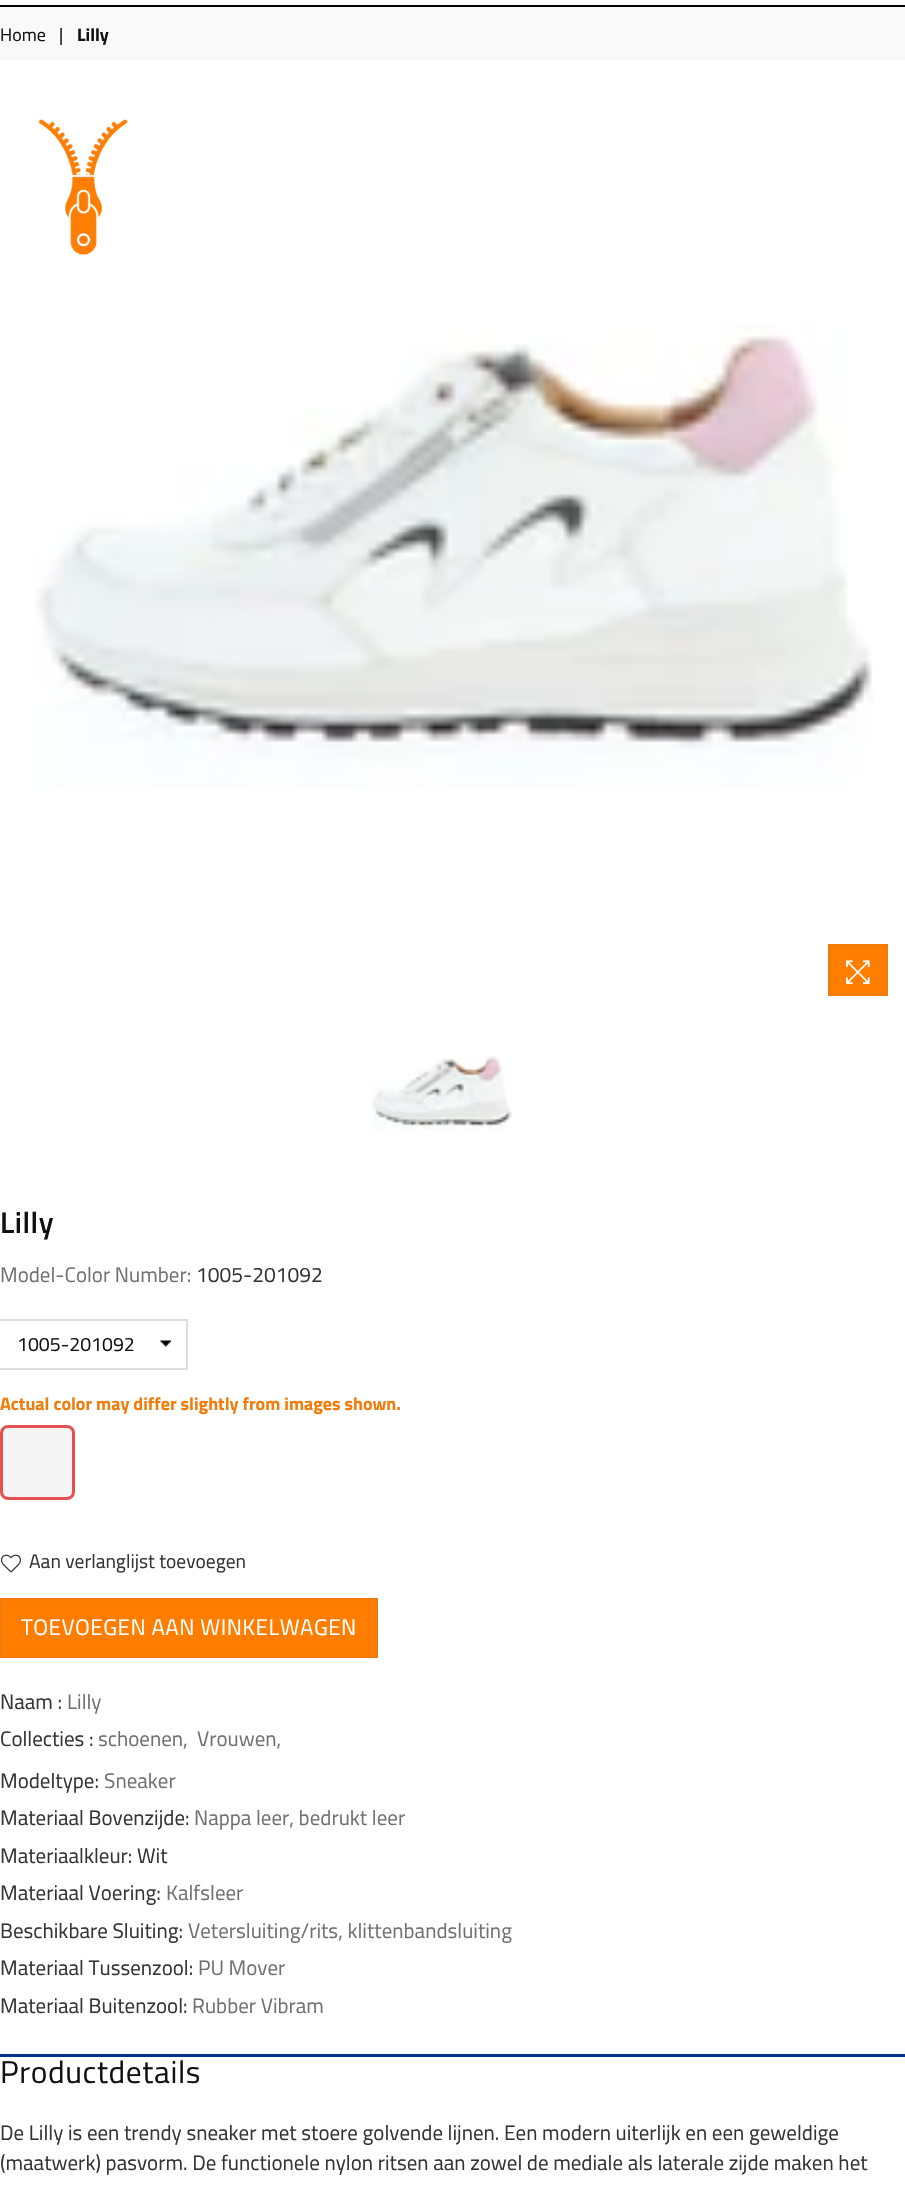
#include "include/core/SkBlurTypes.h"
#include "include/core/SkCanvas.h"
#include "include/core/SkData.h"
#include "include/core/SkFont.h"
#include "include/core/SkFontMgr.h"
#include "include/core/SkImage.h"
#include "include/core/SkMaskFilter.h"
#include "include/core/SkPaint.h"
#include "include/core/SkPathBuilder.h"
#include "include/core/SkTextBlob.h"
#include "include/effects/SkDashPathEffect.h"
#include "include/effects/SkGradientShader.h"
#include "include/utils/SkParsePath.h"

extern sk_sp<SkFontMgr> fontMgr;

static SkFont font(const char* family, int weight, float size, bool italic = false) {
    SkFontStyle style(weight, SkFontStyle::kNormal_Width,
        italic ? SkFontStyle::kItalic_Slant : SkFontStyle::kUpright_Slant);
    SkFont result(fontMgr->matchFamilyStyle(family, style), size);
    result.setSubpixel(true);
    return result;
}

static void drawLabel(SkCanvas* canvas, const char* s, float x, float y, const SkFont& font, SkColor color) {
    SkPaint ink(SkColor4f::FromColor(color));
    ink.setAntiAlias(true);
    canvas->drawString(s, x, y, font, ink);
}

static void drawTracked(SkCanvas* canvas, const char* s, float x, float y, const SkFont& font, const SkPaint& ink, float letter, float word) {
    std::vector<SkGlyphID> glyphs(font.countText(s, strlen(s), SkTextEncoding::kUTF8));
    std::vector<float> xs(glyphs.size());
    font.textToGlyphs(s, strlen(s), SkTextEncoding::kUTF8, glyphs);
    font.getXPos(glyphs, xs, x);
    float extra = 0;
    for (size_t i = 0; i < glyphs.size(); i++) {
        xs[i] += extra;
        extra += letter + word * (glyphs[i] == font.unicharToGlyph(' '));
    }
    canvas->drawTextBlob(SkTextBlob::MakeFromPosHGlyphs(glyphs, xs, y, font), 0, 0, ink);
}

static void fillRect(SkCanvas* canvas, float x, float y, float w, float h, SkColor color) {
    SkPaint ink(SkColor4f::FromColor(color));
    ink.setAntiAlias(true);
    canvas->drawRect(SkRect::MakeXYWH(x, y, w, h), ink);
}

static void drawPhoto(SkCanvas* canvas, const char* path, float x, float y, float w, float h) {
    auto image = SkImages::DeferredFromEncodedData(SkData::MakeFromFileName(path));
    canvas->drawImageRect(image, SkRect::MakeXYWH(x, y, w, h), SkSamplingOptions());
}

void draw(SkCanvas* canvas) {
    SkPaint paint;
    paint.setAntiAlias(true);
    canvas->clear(0xFFFFFFFF);
    fillRect(canvas, 0, 5, 905, 2, 0xFF000000);
    fillRect(canvas, 0, 7, 905, 53, 0xFFF9F9F9);
    SkFont font1 = font("Titillium Web", 400, 18);
    drawLabel(canvas, "Home", 0, 41, font1, 0xFF111111);
    drawLabel(canvas, "|", 59, 41, font1, 0xFF111111);
    SkFont font2 = font("Titillium Web", 700, 18);
    drawLabel(canvas, "Lilly", 77, 41, font2, 0xFF111111);
    drawPhoto(canvas, "assets/img1.png", 38, 119, 90, 136);
    drawPhoto(canvas, "assets/img2.png", 35, 324, 840, 464);
    paint.setColor(0xFFFF7D00);
    canvas->drawRect(SkRect::MakeXYWH(829.5f, 945.5f, 57, 49), paint);
    paint.setStroke(true);
    paint.setStrokeWidth(3);
    paint.setColor(0xFFF37C09);
    canvas->drawRect(SkRect::MakeXYWH(829.5f, 945.5f, 57, 49), paint);
    drawPhoto(canvas, "assets/img3.png", 846, 960, 24, 24);
    drawPhoto(canvas, "assets/img4.png", 371, 1056, 141, 75);
    SkFont font3 = font("Titillium Web", 600, 30);
    paint.setStroke(false);
    paint.setColor(0xFF111111);
    drawTracked(canvas, "Lilly", 0, 1233, font3, paint, 0.5f, 0);
    SkFont font4 = font("Titillium Web", 400, 21);
    drawLabel(canvas, "Model-Color Number:", 0, 1282, font4, 0xFF707070);
    drawLabel(canvas, "1005-201092", 196, 1282, font4, 0xFF333333);
    drawPhoto(canvas, "assets/img5.png", 160, 1340, 11, 7);
    paint.setStroke(true);
    paint.setStrokeWidth(2);
    paint.setColor(0xFFDDDDDD);
    canvas->drawRect(SkRect::MakeXYWH(-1, 1320, 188, 49), paint);
    SkFont font5 = font("Titillium Web", 400, 19.5f);
    drawLabel(canvas, "1005-201092", 17, 1351, font5, 0xFF111111);
    drawLabel(canvas, "Actual color may differ slightly from images shown.", 0, 1410, font2, 0xFFF37C09);
    paint.setStroke(false);
    paint.setColor(0xFFF5F5F5);
    canvas->drawRoundRect(SkRect::MakeXYWH(1.5f, 1426.5f, 72, 72), 6.5f, 6.5f, paint);
    paint.setStroke(true);
    paint.setStrokeWidth(3);
    paint.setColor(0xFFE55151);
    canvas->drawRoundRect(SkRect::MakeXYWH(1.5f, 1426.5f, 72, 72), 6.5f, 6.5f, paint);
    drawPhoto(canvas, "assets/img6.png", 0, 1554, 21, 19);
    drawLabel(canvas, "Aan verlanglijst toevoegen", 29, 1568, font5, 0xFF333333);
    paint.setStroke(false);
    paint.setColor(0xFFFF7D00);
    canvas->drawRect(SkRect::MakeXYWH(1.5f, 1599.5f, 375, 57), paint);
    paint.setStroke(true);
    paint.setColor(0xFFF37C09);
    canvas->drawRect(SkRect::MakeXYWH(1.5f, 1599.5f, 375, 57), paint);
    SkFont font6 = font("Titillium Web", 400, 22.5f);
    paint.setStroke(false);
    paint.setColor(0xFFFFFFFF);
    drawTracked(canvas, "TOEVOEGEN AAN WINKELWAGEN", 21, 1635, font6, paint, 0.45f, 0);
    drawLabel(canvas, "Naam :", 0, 1709, font4, 0xFF333333);
    drawLabel(canvas, "Lilly", 67, 1709, font4, 0xFF707070);
    drawLabel(canvas, "Collecties :", 0, 1746, font4, 0xFF333333);
    drawLabel(canvas, "schoenen,", 98, 1746, font4, 0xFF707070);
    drawLabel(canvas, "Vrouwen,", 197, 1746, font4, 0xFF707070);
    drawLabel(canvas, "Modeltype:", 0, 1788, font4, 0xFF333333);
    drawLabel(canvas, "Sneaker", 104, 1788, font4, 0xFF707070);
    drawLabel(canvas, "Materiaal Bovenzijde:", 0, 1825, font4, 0xFF333333);
    drawLabel(canvas, "Nappa leer, bedrukt leer", 194, 1825, font4, 0xFF707070);
    drawLabel(canvas, "Materiaalkleur: Wit", 0, 1863, font4, 0xFF333333);
    drawLabel(canvas, "Materiaal Voering:", 0, 1900, font4, 0xFF333333);
    drawLabel(canvas, "Kalfsleer", 166, 1900, font4, 0xFF707070);
    drawLabel(canvas, "Beschikbare Sluiting:", 0, 1938, font4, 0xFF333333);
    drawLabel(canvas, "Vetersluiting/rits, klittenbandsluiting", 188, 1938, font4, 0xFF707070);
    drawLabel(canvas, "Materiaal Tussenzool:", 0, 1975, font4, 0xFF333333);
    drawLabel(canvas, "PU Mover", 198, 1975, font4, 0xFF707070);
    drawLabel(canvas, "Materiaal Buitenzool:", 0, 2013, font4, 0xFF333333);
    drawLabel(canvas, "Rubber Vibram", 192, 2013, font4, 0xFF707070);
    fillRect(canvas, 0, 2054, 905, 3, 0xFF00318D);
    SkFont font7 = font("Titillium Web", 400, 31.5f);
    paint.setColor(0xFF111111);
    drawTracked(canvas, "Productdetails", 0, 2083, font7, paint, 0.6f, 0);
    drawLabel(canvas, "De Lilly is een trendy sneaker met stoere golvende lijnen. Een modern uiterlijk en een geweldige", 0, 2140, font4, 0xFF333333);
    drawLabel(canvas, "(maatwerk) pasvorm. De functionele nylon ritsen aan zowel de mediale als laterale zijde maken het", 0, 2170, font4, 0xFF333333);
}
